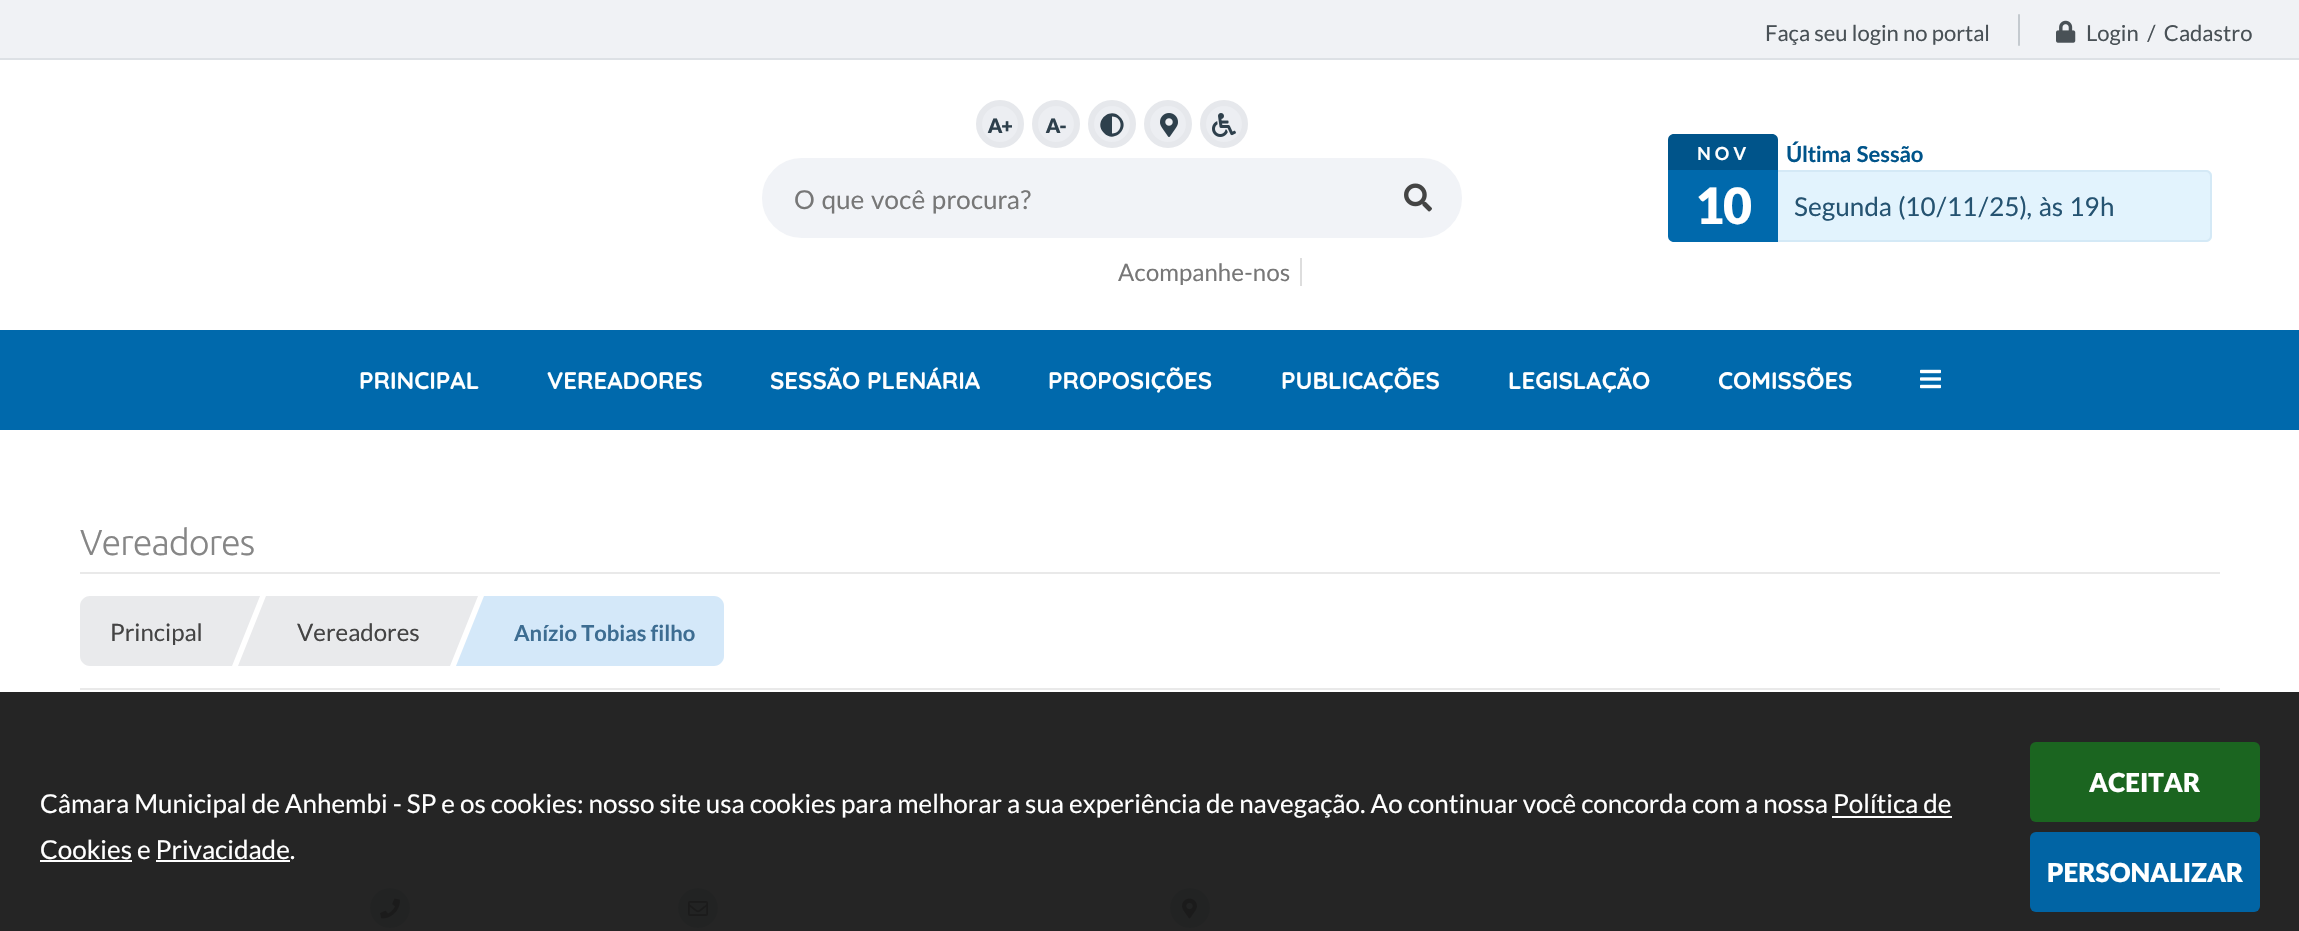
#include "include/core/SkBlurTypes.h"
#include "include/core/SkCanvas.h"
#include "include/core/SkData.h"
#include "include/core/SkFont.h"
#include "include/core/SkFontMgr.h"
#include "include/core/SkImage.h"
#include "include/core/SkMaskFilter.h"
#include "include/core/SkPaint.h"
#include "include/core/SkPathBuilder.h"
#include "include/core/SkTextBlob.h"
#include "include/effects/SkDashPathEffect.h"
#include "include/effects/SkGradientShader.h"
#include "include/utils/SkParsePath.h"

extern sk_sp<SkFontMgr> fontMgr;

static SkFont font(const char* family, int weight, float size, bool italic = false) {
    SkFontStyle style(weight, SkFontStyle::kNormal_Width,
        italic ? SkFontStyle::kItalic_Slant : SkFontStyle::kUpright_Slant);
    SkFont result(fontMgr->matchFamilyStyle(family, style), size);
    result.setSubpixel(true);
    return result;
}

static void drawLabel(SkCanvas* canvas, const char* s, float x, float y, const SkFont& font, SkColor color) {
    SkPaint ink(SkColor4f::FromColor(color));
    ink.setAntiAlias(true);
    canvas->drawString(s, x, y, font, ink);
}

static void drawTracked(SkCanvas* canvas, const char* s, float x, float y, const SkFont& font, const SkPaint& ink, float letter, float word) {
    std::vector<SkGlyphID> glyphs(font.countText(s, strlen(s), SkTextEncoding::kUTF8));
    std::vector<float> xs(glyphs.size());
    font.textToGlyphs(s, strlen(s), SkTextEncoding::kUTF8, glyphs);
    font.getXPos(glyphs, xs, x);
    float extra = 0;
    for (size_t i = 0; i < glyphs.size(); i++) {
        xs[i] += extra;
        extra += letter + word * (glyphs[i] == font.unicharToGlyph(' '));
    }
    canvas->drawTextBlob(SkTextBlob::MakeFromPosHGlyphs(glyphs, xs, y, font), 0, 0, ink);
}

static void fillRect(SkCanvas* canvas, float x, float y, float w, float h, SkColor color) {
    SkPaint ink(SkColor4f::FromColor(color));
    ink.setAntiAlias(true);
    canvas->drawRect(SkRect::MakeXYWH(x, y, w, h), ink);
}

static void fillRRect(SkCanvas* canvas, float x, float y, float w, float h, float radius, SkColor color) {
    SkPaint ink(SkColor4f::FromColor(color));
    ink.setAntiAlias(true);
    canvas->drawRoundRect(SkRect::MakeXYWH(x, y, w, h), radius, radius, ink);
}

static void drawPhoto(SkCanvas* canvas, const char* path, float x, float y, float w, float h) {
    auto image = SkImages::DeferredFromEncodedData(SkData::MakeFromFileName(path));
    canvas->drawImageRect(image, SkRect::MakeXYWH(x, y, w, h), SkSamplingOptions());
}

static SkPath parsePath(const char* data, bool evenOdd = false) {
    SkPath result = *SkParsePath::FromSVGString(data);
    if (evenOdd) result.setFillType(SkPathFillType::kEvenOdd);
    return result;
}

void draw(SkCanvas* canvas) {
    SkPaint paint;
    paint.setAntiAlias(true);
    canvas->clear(0xFFFFFFFF);
    fillRect(canvas, 0, 692, 2299, 239, 0xFF252525);
    fillRect(canvas, 0, 0, 2299, 58, 0xFFF0F2F5);
    fillRect(canvas, 0, 58, 2299, 2, 0xFFDDE1E5);
    SkFont font1 = font("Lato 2", 400, 22);
    drawLabel(canvas, "Faça seu login no portal", 1765, 41, font1, 0xFF495156);
    fillRRect(canvas, 2018, 14, 2, 32, 1, 0xFFC4CACF);
    drawPhoto(canvas, "assets/img1.png", 2056, 20, 20, 23);
    drawLabel(canvas, "Login  /  Cadastro", 2086, 41, font1, 0xFF495156);
    paint.setColor(0xFFECEEF2);
    canvas->drawCircle(1000, 124, 21, paint);
    paint.setStroke(true);
    paint.setStrokeWidth(6);
    paint.setColor(0xFFE6E8EC);
    canvas->drawCircle(1000, 124, 21, paint);
    SkFont font2 = font("Lato", 900, 20);
    paint.setStroke(false);
    paint.setColor(0xFF2E404C);
    drawTracked(canvas, "A+", 988, 133, font2, paint, -1, 0);
    paint.setColor(0xFFECEEF2);
    canvas->drawCircle(1056, 124, 21, paint);
    paint.setStroke(true);
    paint.setColor(0xFFE6E8EC);
    canvas->drawCircle(1056, 124, 21, paint);
    paint.setStroke(false);
    paint.setColor(0xFF2E404C);
    drawTracked(canvas, "A-", 1046, 133, font2, paint, -1, 0);
    paint.setColor(0xFFECEEF2);
    canvas->drawCircle(1112, 124, 21, paint);
    paint.setStroke(true);
    paint.setColor(0xFFE6E8EC);
    canvas->drawCircle(1112, 124, 21, paint);
    paint.setStroke(false);
    paint.setColor(0xFF2E404C);
    canvas->drawPath(parsePath("M1104 133C1093 122.5 1109.5 106 1120 117C1131 127.5 1114.5 144 1104 133ZM1112 133.5C1123.5 133.5 1123.5 116.5 1112 116.5Z"), paint);
    paint.setColor(0xFFECEEF2);
    canvas->drawCircle(1168, 124, 21, paint);
    paint.setStroke(true);
    paint.setColor(0xFFE6E8EC);
    canvas->drawCircle(1168, 124, 21, paint);
    drawPhoto(canvas, "assets/img2.png", 1160, 113, 18, 24);
    paint.setStroke(false);
    paint.setColor(0xFFECEEF2);
    canvas->drawCircle(1224, 124, 21, paint);
    paint.setStroke(true);
    paint.setColor(0xFFE6E8EC);
    canvas->drawCircle(1224, 124, 21, paint);
    drawPhoto(canvas, "assets/img3.png", 1212, 113, 24, 24);
    paint.setStroke(false);
    paint.setColor(0xFFF1F3F7);
    canvas->drawRoundRect(SkRect::MakeXYWH(763, 159, 698, 78), 39, 39, paint);
    paint.setStroke(true);
    paint.setStrokeWidth(2);
    canvas->drawRoundRect(SkRect::MakeXYWH(763, 159, 698, 78), 39, 39, paint);
    SkFont font3 = font("Lato", 400, 26);
    drawLabel(canvas, "O que você procura?", 794, 209, font3, 0xFF777777);
    drawPhoto(canvas, "assets/img4.png", 1404, 183, 28, 29);
    fillRect(canvas, 1300, 258, 2, 28, 0xFFDDDDDD);
    SkFont font4 = font("Lato", 400, 24);
    drawLabel(canvas, "Acompanhe-nos", 1118, 281, font4, 0xFF777777);
    paint.setStroke(false);
    paint.setColor(0xFF00548A);
    canvas->drawPath(parsePath("M1674 134H1772C1775.5 134 1778 136.5 1778 140V170H1668V140C1668 136.5 1670.5 134 1674 134Z"), paint);
    SkFont font5 = font("Lato", 700, 18);
    paint.setColor(0xFFFFFFFF);
    drawTracked(canvas, "NOV", 1697, 160, font5, paint, 4, 0);
    paint.setColor(0xFF0069AC);
    canvas->drawPath(parsePath("M1668 170H1778V242H1674C1670.5 242 1668 239.5 1668 236Z"), paint);
    SkFont font6 = font("Lato", 900, 50);
    paint.setColor(0xFFFFFFFF);
    drawTracked(canvas, "10", 1696, 224, font6, paint, -2, 0);
    SkFont font7 = font("Lato", 700, 22);
    drawLabel(canvas, "Última Sessão", 1786, 162, font7, 0xFF00548A);
    paint.setColor(0xFFE2F3FD);
    canvas->drawPath(parsePath("M1778 170H2206C2209.5 170 2212 172.5 2212 176V236C2212 239.5 2209.5 242 2206 242H1778Z"), paint);
    paint.setColor(0xFFD4E9F6);
    canvas->drawPath(parsePath("M1778 170H2206C2209 170 2212 173 2212 176V236C2212 239 2209 242 2206 242H1778ZM1778 172H2206C2208 172 2210 174 2210 176V236C2210 238 2208 240 2206 240H1778Z", true), paint);
    drawLabel(canvas, "Segunda (10/11/25), às 19h", 1794, 216, font3, 0xFF255371);
    fillRect(canvas, 0, 330, 2299, 100, 0xFF0069AC);
    SkFont font8 = font("Quicksand", 700, 24);
    drawLabel(canvas, "PRINCIPAL", 359, 389, font8, 0xFFFFFFFF);
    drawLabel(canvas, "VEREADORES", 547, 389, font8, 0xFFFFFFFF);
    drawLabel(canvas, "SESSÃO PLENÁRIA", 770, 389, font8, 0xFFFFFFFF);
    drawLabel(canvas, "PROPOSIÇÕES", 1048, 389, font8, 0xFFFFFFFF);
    drawLabel(canvas, "PUBLICAÇÕES", 1281, 389, font8, 0xFFFFFFFF);
    drawLabel(canvas, "LEGISLAÇÃO", 1508, 389, font8, 0xFFFFFFFF);
    drawLabel(canvas, "COMISSÕES", 1718, 389, font8, 0xFFFFFFFF);
    drawPhoto(canvas, "assets/img5.png", 1920, 369, 21, 20);
    SkFont font9 = font("Lato 2", 400, 26);
    drawLabel(canvas, "Câmara Municipal de Anhembi - SP e os cookies: nosso site usa cookies para melhorar a sua experiência de navegação. Ao continuar você concorda com a nossa Política de", 40, 813, font9, 0xFFFFFFFF);
    drawLabel(canvas, "Cookies e Privacidade.", 40, 859, font9, 0xFFFFFFFF);
    fillRect(canvas, 1832, 816, 120, 2, 0xFFFFFFFF);
    fillRect(canvas, 40, 860, 92, 2, 0xFFFFFFFF);
    fillRect(canvas, 156, 860, 134, 2, 0xFFFFFFFF);
    fillRRect(canvas, 2030, 742, 230, 80, 6, 0xFF1B6520);
    SkFont font10 = font("Lato 2", 900, 26);
    drawLabel(canvas, "ACEITAR", 2089, 792, font10, 0xFFFFFFFF);
    fillRRect(canvas, 2030, 832, 230, 80, 6, 0xFF0164A4);
    drawLabel(canvas, "PERSONALIZAR", 2047, 882, font10, 0xFFFFFFFF);
    SkFont font11 = font("Ubuntu", 300, 36);
    paint.setColor(0xFF868686);
    drawTracked(canvas, "Vereadores", 80, 555, font11, paint, -1, 0);
    fillRect(canvas, 80, 572, 2140, 2, 0xFFE9E9E9);
    fillRect(canvas, 80, 688, 2140, 2, 0xFFE9E9E9);
    paint.setColor(0xFFE9EAEC);
    canvas->drawPath(parsePath("M90 596H232V666H90C84.5 666 80 661.5 80 656V606C80 600.5 84.5 596 90 596Z"), paint);
    SkFont font12 = font("Lato 2", 400, 24);
    drawLabel(canvas, "Principal", 110, 641, font12, 0xFF444444);
    canvas->drawPath(parsePath("M232 596H260L232 666Z"), paint);
    fillRect(canvas, 266, 596, 184, 70, 0xFFE9EAEC);
    canvas->drawPath(parsePath("M266 666H238L266 596Z"), paint);
    drawLabel(canvas, "Vereadores", 297, 641, font12, 0xFF444444);
    canvas->drawPath(parsePath("M450 596H478L450 666Z"), paint);
    paint.setColor(0xFFD4E8F9);
    canvas->drawPath(parsePath("M484 596H714C719.5 596 724 600.5 724 606V656C724 661.5 719.5 666 714 666H484Z"), paint);
    canvas->drawPath(parsePath("M484 666H456L484 596Z"), paint);
    SkFont font13 = font("Lato 2", 700, 22);
    drawLabel(canvas, "Anízio Tobias filho", 514, 641, font13, 0xFF3D6D92);
    paint.setColor(0xFF222323);
    canvas->drawCircle(390, 908, 20, paint);
    drawPhoto(canvas, "assets/img6.png", 380, 898, 20, 21);
    canvas->drawCircle(698, 908, 20, paint);
    drawPhoto(canvas, "assets/img7.png", 688, 901, 20, 15);
    canvas->drawCircle(1190, 908, 20, paint);
    drawPhoto(canvas, "assets/img8.png", 1182, 898, 15, 21);
}
